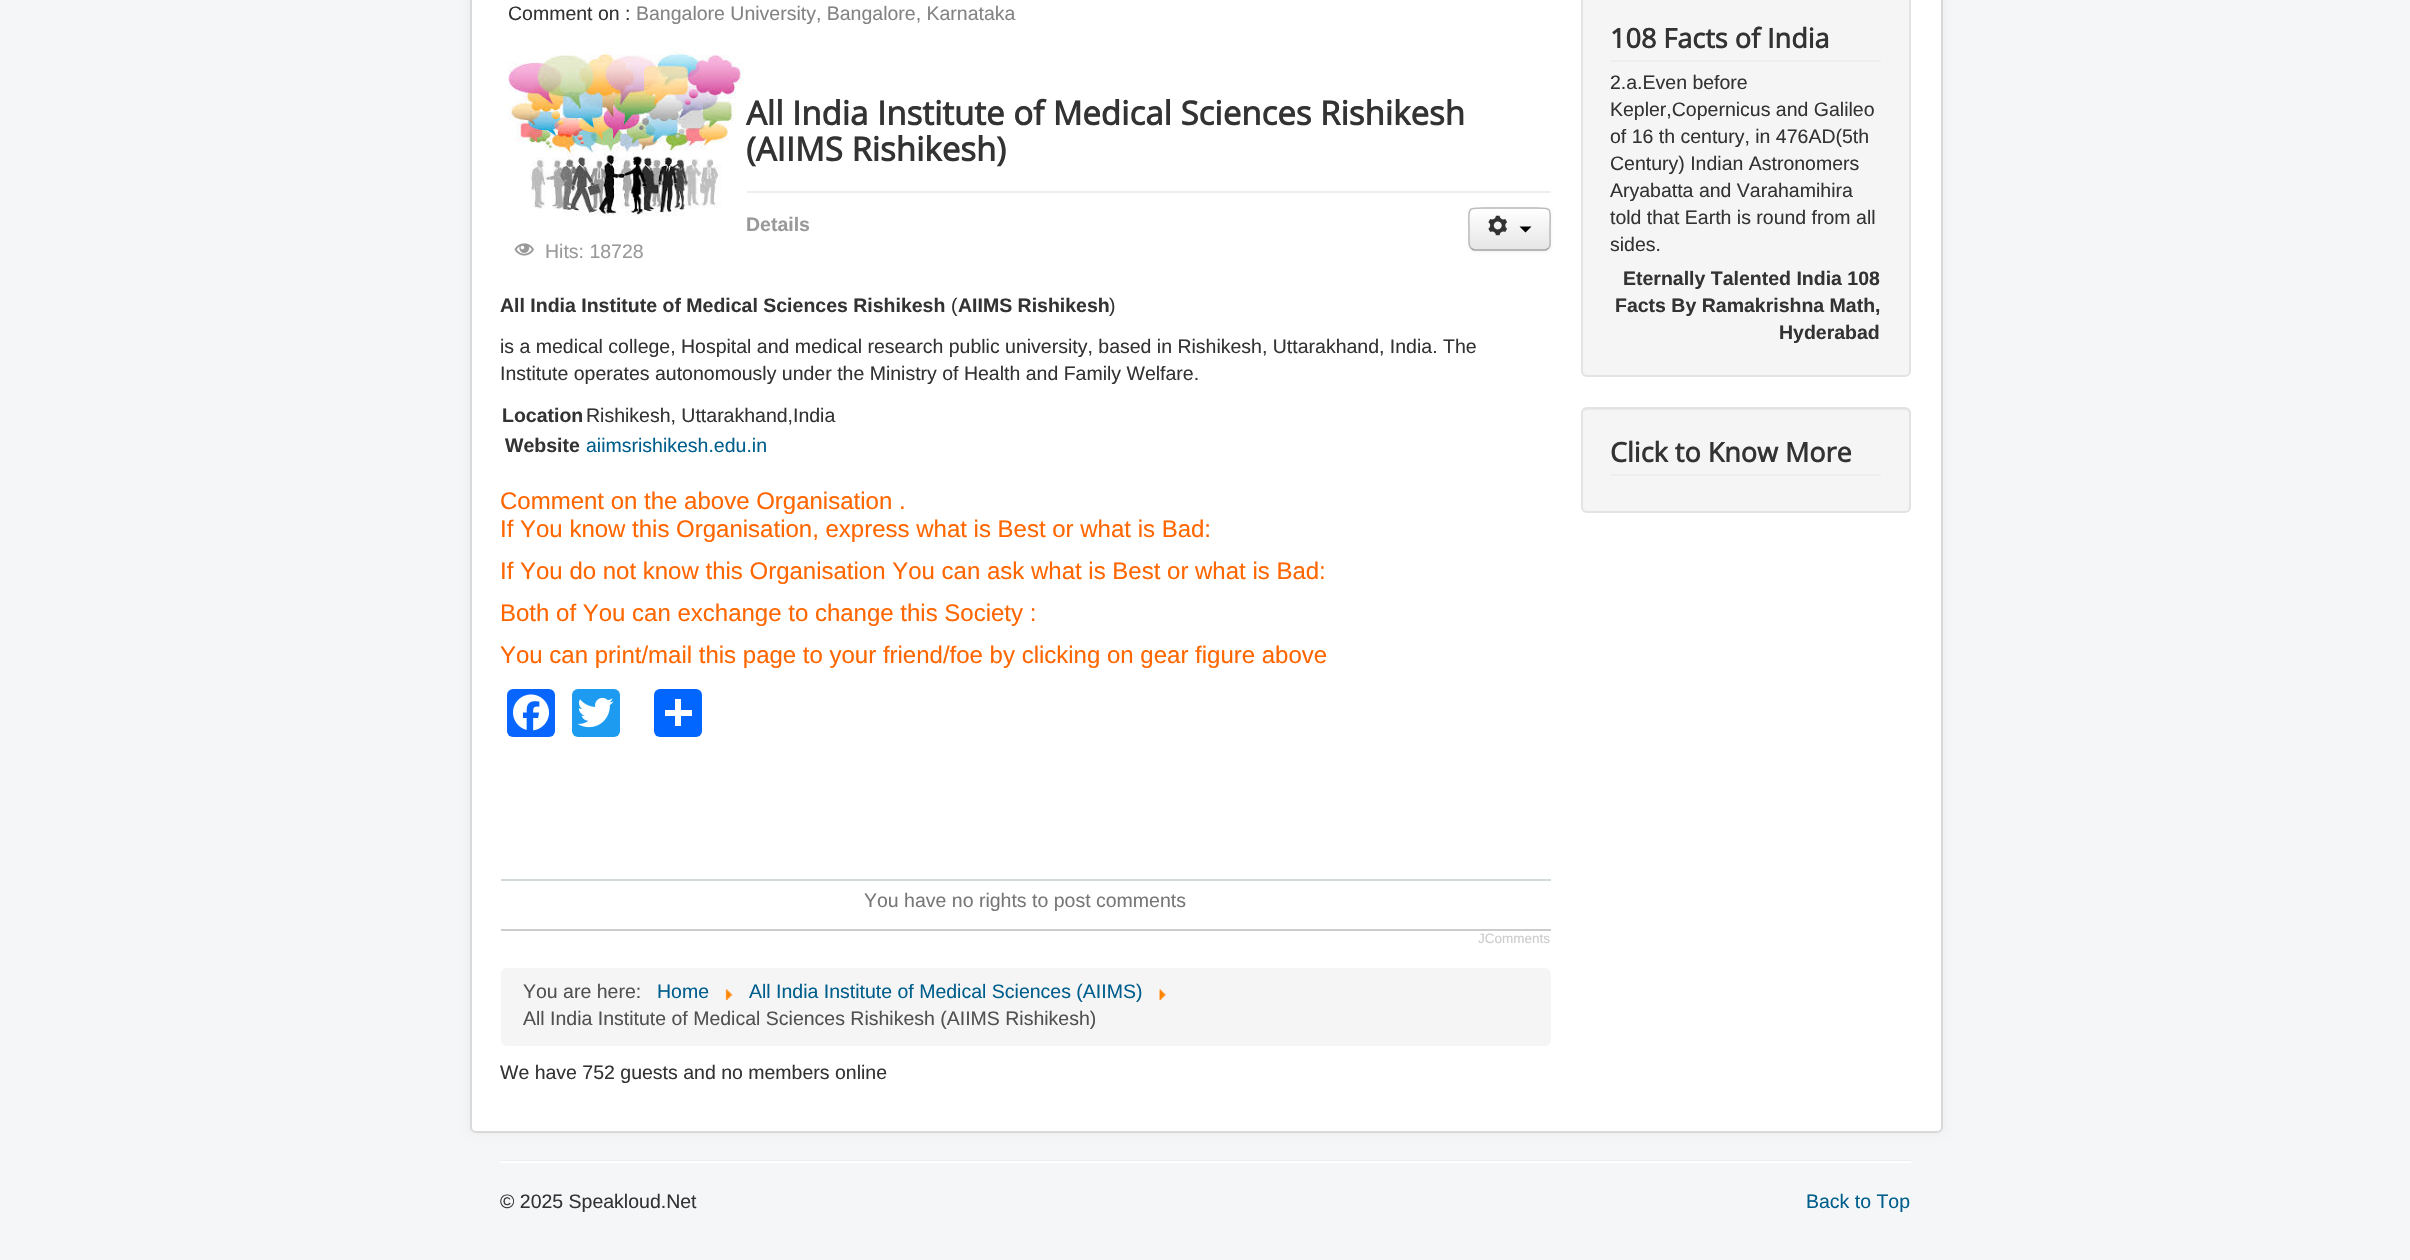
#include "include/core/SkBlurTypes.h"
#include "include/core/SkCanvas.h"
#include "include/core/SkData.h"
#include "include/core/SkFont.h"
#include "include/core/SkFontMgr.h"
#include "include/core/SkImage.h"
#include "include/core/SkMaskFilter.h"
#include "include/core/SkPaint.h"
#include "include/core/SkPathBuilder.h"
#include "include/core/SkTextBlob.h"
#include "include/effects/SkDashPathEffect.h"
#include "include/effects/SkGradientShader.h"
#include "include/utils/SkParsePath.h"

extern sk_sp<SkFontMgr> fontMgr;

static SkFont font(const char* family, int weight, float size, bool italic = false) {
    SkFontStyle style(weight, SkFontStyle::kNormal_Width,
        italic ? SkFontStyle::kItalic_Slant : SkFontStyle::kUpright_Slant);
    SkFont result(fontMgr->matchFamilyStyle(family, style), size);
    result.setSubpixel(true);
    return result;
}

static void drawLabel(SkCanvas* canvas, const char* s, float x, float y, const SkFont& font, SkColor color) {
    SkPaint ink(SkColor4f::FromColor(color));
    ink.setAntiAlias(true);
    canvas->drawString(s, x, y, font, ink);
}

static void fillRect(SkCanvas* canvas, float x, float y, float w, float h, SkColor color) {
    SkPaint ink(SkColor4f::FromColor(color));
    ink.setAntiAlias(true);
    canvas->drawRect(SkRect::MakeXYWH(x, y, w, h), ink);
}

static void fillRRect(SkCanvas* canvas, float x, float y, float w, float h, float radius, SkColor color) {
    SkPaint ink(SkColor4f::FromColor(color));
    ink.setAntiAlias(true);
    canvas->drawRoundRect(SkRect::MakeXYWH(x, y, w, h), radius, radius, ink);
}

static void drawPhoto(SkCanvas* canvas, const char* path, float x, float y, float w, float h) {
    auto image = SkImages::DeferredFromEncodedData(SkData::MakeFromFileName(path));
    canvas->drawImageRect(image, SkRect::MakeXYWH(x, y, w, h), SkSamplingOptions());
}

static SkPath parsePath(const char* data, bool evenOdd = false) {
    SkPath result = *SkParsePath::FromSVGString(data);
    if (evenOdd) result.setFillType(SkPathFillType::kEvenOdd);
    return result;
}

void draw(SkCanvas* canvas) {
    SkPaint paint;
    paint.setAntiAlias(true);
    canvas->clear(0xFFF4F6F7);
    paint.setColor(0x0D000000);
    paint.setMaskFilter(SkMaskFilter::MakeBlur(kNormal_SkBlurStyle, 4.5f));
    canvas->drawRoundRect(SkRect::MakeXYWH(470, -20, 1473, 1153), 6, 6, paint);
    paint.setMaskFilter(nullptr);
    fillRRect(canvas, 470, -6, 1473, 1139, 6, 0xFFFFFFFF);
    paint.setStroke(true);
    paint.setStrokeWidth(2);
    paint.setColor(0x26000000);
    canvas->drawRoundRect(SkRect::MakeXYWH(471, -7, 1471, 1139), 5, 5, paint);
    SkFont font1 = font("Liberation Sans", 400, 19.5f);
    drawLabel(canvas, "Comment on :", 508, 20, font1, 0xFF333333);
    drawLabel(canvas, "Bangalore University, Bangalore, Karnataka", 636, 20, font1, 0xFF838383);
    drawPhoto(canvas, "assets/img1.png", 501, 47, 246, 170);
    fillRect(canvas, 747, 191, 804, 2, 0xFFEEEEEE);
    SkFont font2 = font("Open Sans", 700, 33);
    drawLabel(canvas, "All India Institute of Medical Sciences Rishikesh", 746, 125, font2, 0xFF333333);
    drawLabel(canvas, "(AIIMS Rishikesh)", 746, 161, font2, 0xFF333333);
    SkFont font3 = font("Liberation Sans", 700, 19.5f);
    drawLabel(canvas, "Details", 746, 231, font3, 0xFF999999);
    drawPhoto(canvas, "assets/img2.png", 514, 243, 20, 13);
    drawLabel(canvas, "Hits: 18728", 545, 258, font1, 0xFF999999);
    paint.setStroke(false);
    paint.setColor(0x0D000000);
    paint.setMaskFilter(SkMaskFilter::MakeBlur(kNormal_SkBlurStyle, 1.5f));
    canvas->drawRoundRect(SkRect::MakeXYWH(1469, 209, 82, 43), 6, 6, paint);
    paint.setMaskFilter(nullptr);
    fillRRect(canvas, 1469, 207, 82, 44, 6, 0xFFF5F5F5);
    canvas->save();
    canvas->clipPath(parsePath("M1475 207H1545C1548.5 207 1551 209.5 1551 213V245C1551 248.5 1548.5 251 1545 251H1475C1471.5 251 1469 248.5 1469 245V213C1469 209.5 1471.5 207 1475 207Z"), true);
    {
        const SkColor colors[] = {0xFFFFFFFF, 0xFFE6E6E6};
        const float stops[] = {0, 1};
        const SkPoint ends[] = {{1510, 209}, {1510, 249}};
        paint.setShader(SkGradientShader::MakeLinear(ends, colors, stops, 2, SkTileMode::kClamp));
        paint.setAlpha(255);
    }
    canvas->drawRect(SkRect::MakeXYWH(1469, 209, 82, 40), paint);
    canvas->restore();
    paint.setStroke(true);
    paint.setStrokeWidth(1.5f);
    paint.setShader(nullptr);
    paint.setColor(0xFFA2A2A2);
    canvas->drawPath(parsePath("M1548.5 248C1547.5 249 1546.5 250 1545 250H1474.5C1473 250 1472 249 1471 248"), paint);
    paint.setColor(0xFFBBBBBB);
    canvas->drawPath(parsePath("M1471 248C1468.5 246 1469 242 1469 239V229C1469 207 1465.5 208 1486 208H1533C1554 208 1550 207 1550 229V239C1550 242 1551 246 1548.5 248"), paint);
    drawPhoto(canvas, "assets/img3.png", 1488, 215, 20, 21);
    paint.setStroke(false);
    paint.setColor(0xFF000000);
    canvas->drawPath(parsePath("M1519.5 226.5H1531.5L1525.5 232.5Z"), paint);
    drawLabel(canvas, "All India Institute of Medical Sciences Rishikesh", 500, 312, font3, 0xFF333333);
    drawLabel(canvas, "(", 951, 312, font1, 0xFF333333);
    drawLabel(canvas, "AIIMS Rishikesh", 958, 312, font3, 0xFF333333);
    drawLabel(canvas, ")", 1109, 312, font1, 0xFF333333);
    drawLabel(canvas, "is a medical college, Hospital and medical research public university, based in Rishikesh, Uttarakhand, India. The", 500, 353, font1, 0xFF333333);
    drawLabel(canvas, "Institute operates autonomously under the Ministry of Health and Family Welfare.", 500, 380, font1, 0xFF333333);
    drawLabel(canvas, "Location", 502, 422, font3, 0xFF333333);
    drawLabel(canvas, "Rishikesh, Uttarakhand,India", 586, 422, font1, 0xFF333333);
    drawLabel(canvas, "Website", 505, 452, font3, 0xFF333333);
    drawLabel(canvas, "aiimsrishikesh.edu.in", 586, 452, font1, 0xFF005E8D);
    SkFont font4 = font("Liberation Sans", 400, 24);
    drawLabel(canvas, "Comment on the above Organisation .", 500, 509, font4, 0xFFFF6600);
    drawLabel(canvas, "If You know this Organisation, express what is Best or what is Bad:", 500, 537, font4, 0xFFFF6600);
    drawLabel(canvas, "If You do not know this Organisation You can ask what is Best or what is Bad:", 500, 579, font4, 0xFFFF6600);
    drawLabel(canvas, "Both of You can exchange to change this Society :", 500, 621, font4, 0xFFFF6600);
    drawLabel(canvas, "You can print/mail this page to your friend/foe by clicking on gear figure above", 500, 663, font4, 0xFFFF6600);
    fillRRect(canvas, 507, 689, 48, 48, 6, 0xFF0866FF);
    drawPhoto(canvas, "assets/img4.png", 513, 694, 36, 37);
    fillRRect(canvas, 572, 689, 48, 48, 6, 0xFF1D9BF0);
    drawPhoto(canvas, "assets/img5.png", 577, 697, 37, 31);
    fillRRect(canvas, 654, 689, 48, 48, 6, 0xFF0166FF);
    fillRect(canvas, 675, 699, 6, 27, 0xFFFFFFFF);
    fillRect(canvas, 665, 710, 27, 6, 0xFFFFFFFF);
    fillRect(canvas, 501, 879, 1050, 2, 0xFFD2DADB);
    drawLabel(canvas, "You have no rights to post comments", 864, 907, font1, 0xFF777777);
    fillRect(canvas, 501, 929, 1050, 2, 0xFFCCCCCC);
    SkFont font5 = font("Liberation Sans", 400, 13.5f);
    drawLabel(canvas, "JComments", 1478, 943, font5, 0xFFCCCCCC);
    fillRRect(canvas, 501, 968, 1050, 78, 6, 0xFFF5F5F5);
    drawLabel(canvas, "You are here:", 523, 998, font1, 0xFF515151);
    drawLabel(canvas, "Home", 657, 998, font1, 0xFF005E8D);
    drawPhoto(canvas, "assets/img6.png", 725, 989, 8, 11);
    drawLabel(canvas, "All India Institute of Medical Sciences (AIIMS)", 749, 998, font1, 0xFF005E8D);
    drawPhoto(canvas, "assets/img7.png", 1159, 989, 7, 11);
    drawLabel(canvas, "All India Institute of Medical Sciences Rishikesh (AIIMS Rishikesh)", 523, 1025, font1, 0xFF515151);
    drawLabel(canvas, "We have 752 guests and no members online", 500, 1079, font1, 0xFF333333);
    paint.setColor(0xFFF5F5F5);
    canvas->drawRoundRect(SkRect::MakeXYWH(1582, -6, 328, 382), 5, 5, paint);
    paint.setStroke(true);
    paint.setStrokeWidth(2);
    paint.setColor(0xFFE3E3E3);
    canvas->drawRoundRect(SkRect::MakeXYWH(1582, -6, 328, 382), 5, 5, paint);
    fillRect(canvas, 1611, 60, 270, 2, 0xFFEEEEEE);
    SkFont font6 = font("Open Sans", 700, 27);
    drawLabel(canvas, "108 Facts of India", 1610, 48, font6, 0xFF333333);
    drawLabel(canvas, "2.a.Even before", 1610, 89, font1, 0xFF333333);
    drawLabel(canvas, "Kepler,Copernicus and Galileo", 1610, 116, font1, 0xFF333333);
    drawLabel(canvas, "of 16 th century, in 476AD(5th", 1610, 143, font1, 0xFF333333);
    drawLabel(canvas, "Century) Indian Astronomers", 1610, 170, font1, 0xFF333333);
    drawLabel(canvas, "Aryabatta and Varahamihira", 1610, 197, font1, 0xFF333333);
    drawLabel(canvas, "told that Earth is round from all", 1610, 224, font1, 0xFF333333);
    drawLabel(canvas, "sides.", 1610, 251, font1, 0xFF333333);
    drawLabel(canvas, "Eternally Talented India 108", 1623, 285, font3, 0xFF333333);
    drawLabel(canvas, "Facts By Ramakrishna Math,", 1615, 312, font3, 0xFF333333);
    drawLabel(canvas, "Hyderabad", 1779, 339, font3, 0xFF333333);
    fillRRect(canvas, 1581, 407, 330, 106, 6, 0xFFF5F5F5);
    paint.setStroke(false);
    paint.setColor(0xFFE9E9E9);
    canvas->drawPath(parsePath("M1587 410H1905C1907 410 1910 412 1910 414V413C1910 410 1908 408 1905 408H1588C1586 408 1584 410 1583 412C1584 411 1586 410 1587 410Z"), paint);
    paint.setStroke(true);
    paint.setColor(0xFFE3E3E3);
    canvas->drawRoundRect(SkRect::MakeXYWH(1582, 408, 328, 104), 5, 5, paint);
    fillRect(canvas, 1611, 474, 270, 2, 0xFFEEEEEE);
    drawLabel(canvas, "Click to Know More", 1610, 462, font6, 0xFF333333);
    fillRect(canvas, 501, 1160, 1410, 1, 0xFFEEEEEE);
    fillRect(canvas, 501, 1161, 1410, 2, 0xFFFFFFFF);
    drawLabel(canvas, "© 2025 Speakloud.Net", 500, 1208, font1, 0xFF333333);
    drawLabel(canvas, "Back to Top", 1806, 1208, font1, 0xFF005E8D);
}
